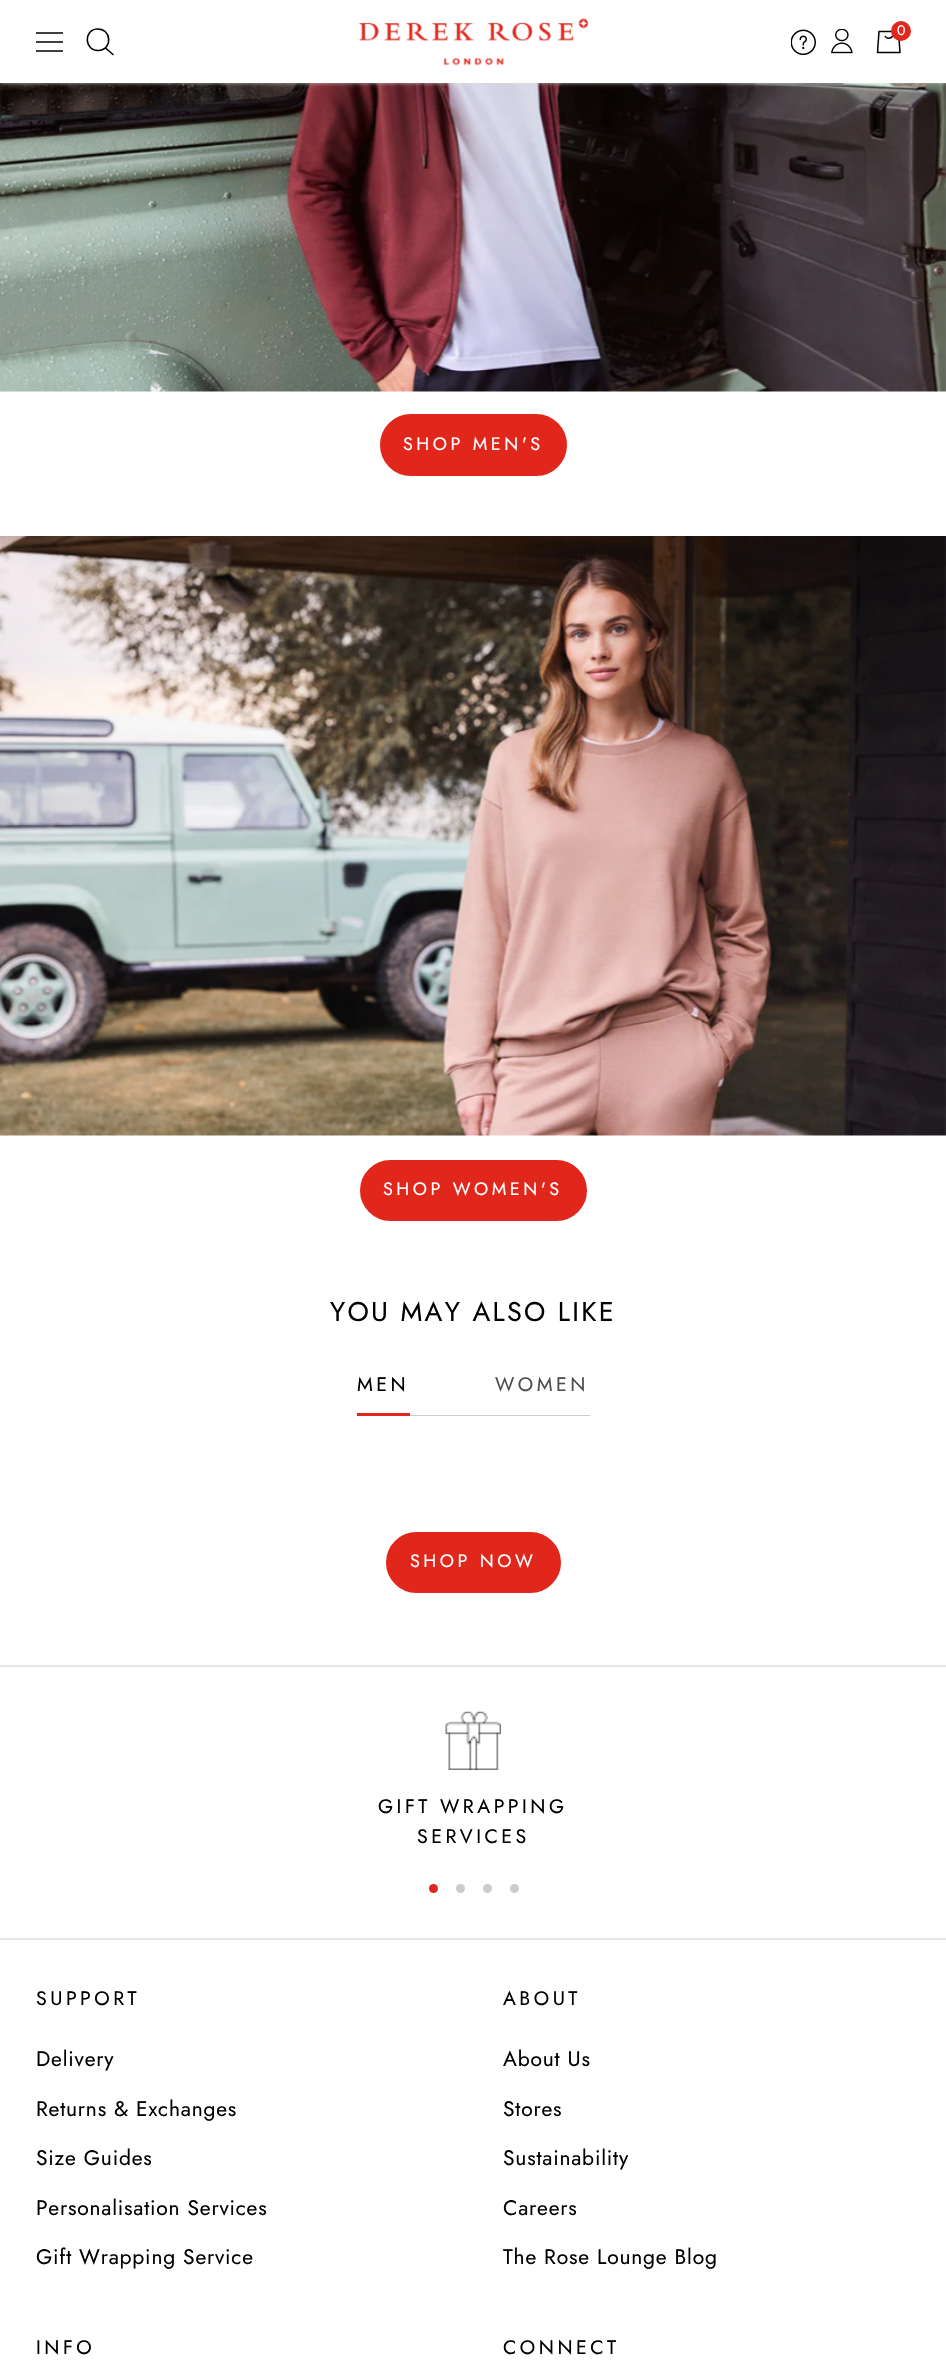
#include "include/core/SkBlurTypes.h"
#include "include/core/SkCanvas.h"
#include "include/core/SkData.h"
#include "include/core/SkFont.h"
#include "include/core/SkFontMgr.h"
#include "include/core/SkImage.h"
#include "include/core/SkMaskFilter.h"
#include "include/core/SkPaint.h"
#include "include/core/SkPathBuilder.h"
#include "include/core/SkTextBlob.h"
#include "include/effects/SkDashPathEffect.h"
#include "include/effects/SkGradientShader.h"
#include "include/utils/SkParsePath.h"

extern sk_sp<SkFontMgr> fontMgr;

static SkFont font(const char* family, int weight, float size, bool italic = false) {
    SkFontStyle style(weight, SkFontStyle::kNormal_Width,
        italic ? SkFontStyle::kItalic_Slant : SkFontStyle::kUpright_Slant);
    SkFont result(fontMgr->matchFamilyStyle(family, style), size);
    result.setSubpixel(true);
    return result;
}

static void drawLabel(SkCanvas* canvas, const char* s, float x, float y, const SkFont& font, SkColor color) {
    SkPaint ink(SkColor4f::FromColor(color));
    ink.setAntiAlias(true);
    canvas->drawString(s, x, y, font, ink);
}

static void drawTracked(SkCanvas* canvas, const char* s, float x, float y, const SkFont& font, const SkPaint& ink, float letter, float word) {
    std::vector<SkGlyphID> glyphs(font.countText(s, strlen(s), SkTextEncoding::kUTF8));
    std::vector<float> xs(glyphs.size());
    font.textToGlyphs(s, strlen(s), SkTextEncoding::kUTF8, glyphs);
    font.getXPos(glyphs, xs, x);
    float extra = 0;
    for (size_t i = 0; i < glyphs.size(); i++) {
        xs[i] += extra;
        extra += letter + word * (glyphs[i] == font.unicharToGlyph(' '));
    }
    canvas->drawTextBlob(SkTextBlob::MakeFromPosHGlyphs(glyphs, xs, y, font), 0, 0, ink);
}

static void fillRect(SkCanvas* canvas, float x, float y, float w, float h, SkColor color) {
    SkPaint ink(SkColor4f::FromColor(color));
    ink.setAntiAlias(true);
    canvas->drawRect(SkRect::MakeXYWH(x, y, w, h), ink);
}

static void drawPhoto(SkCanvas* canvas, const char* path, float x, float y, float w, float h) {
    auto image = SkImages::DeferredFromEncodedData(SkData::MakeFromFileName(path));
    canvas->drawImageRect(image, SkRect::MakeXYWH(x, y, w, h), SkSamplingOptions());
}

static SkPath parsePath(const char* data, bool evenOdd = false) {
    SkPath result = *SkParsePath::FromSVGString(data);
    if (evenOdd) result.setFillType(SkPathFillType::kEvenOdd);
    return result;
}

void draw(SkCanvas* canvas) {
    SkPaint paint;
    paint.setAntiAlias(true);
    canvas->clear(0xFFFFFFFF);
    drawPhoto(canvas, "assets/img4.png", 0, 83, 946, 309);
    paint.setColor(0xCCD9D9D9);
    paint.setMaskFilter(SkMaskFilter::MakeBlur(kNormal_SkBlurStyle, 2));
    canvas->drawRect(SkRect::MakeXYWH(0, 0, 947, 83), paint);
    paint.setMaskFilter(nullptr);
    fillRect(canvas, 0, 0, 946, 83, 0xFFFFFFFF);
    paint.setStroke(true);
    paint.setStrokeWidth(1.5f);
    paint.setColor(0xFF000000);
    canvas->drawPath(parsePath("M36 33H63M36 51H63ZM36 42H63Z"), paint);
    paint.setStrokeWidth(1.6f);
    canvas->drawPath(parsePath("M97 29C111.5 28 113 49.5 99 50.5C84.5 51.5 83 30 97 29Z"), paint);
    paint.setStrokeCap(SkPaint::kRound_Cap);
    paint.setStrokeJoin(SkPaint::kRound_Join);
    canvas->drawPath(parsePath("M113 54.5L106 48.5"), paint);
    drawPhoto(canvas, "assets/img1.png", 358, 18, 231, 48);
    drawPhoto(canvas, "assets/img2.png", 791, 29, 25, 27);
    drawPhoto(canvas, "assets/img3.png", 831, 29, 22, 25);
    paint.setStrokeWidth(1.5f);
    canvas->drawPath(parsePath("M877.5 52.5H900L898.5 31.5H879Z"), paint);
    paint.setStrokeCap(SkPaint::kButt_Cap);
    paint.setStrokeJoin(SkPaint::kMiter_Join);
    canvas->drawPath(parsePath("M885 36C886 38 889.5 40 893 36"), paint);
    paint.setStroke(false);
    paint.setColor(0xFFE1261C);
    canvas->drawCircle(901, 31, 10, paint);
    SkFont font1 = font("Jost", 400, 14);
    drawLabel(canvas, "0", 897, 35, font1, 0xFFFFFFFF);
    canvas->drawRoundRect(SkRect::MakeXYWH(381, 415, 185, 60), 30, 30, paint);
    paint.setStroke(true);
    paint.setStrokeWidth(2);
    canvas->drawRoundRect(SkRect::MakeXYWH(381, 415, 185, 60), 30, 30, paint);
    SkFont font2 = font("Jost", 400, 18);
    paint.setStroke(false);
    paint.setColor(0xFFFFFFFF);
    drawTracked(canvas, "SHOP MEN'S", 403, 450, font2, paint, 3.5f, 0);
    drawPhoto(canvas, "assets/img5.png", 0, 536, 946, 600);
    paint.setColor(0xFFE1261C);
    canvas->drawRoundRect(SkRect::MakeXYWH(361, 1161, 225, 59), 29.5f, 29.5f, paint);
    paint.setStroke(true);
    canvas->drawRoundRect(SkRect::MakeXYWH(361, 1161, 225, 59), 29.5f, 29.5f, paint);
    paint.setStroke(false);
    paint.setColor(0xFFFFFFFF);
    drawTracked(canvas, "SHOP WOMEN'S", 383, 1195, font2, paint, 3.5f, 0);
    SkFont font3 = font("Jost", 400, 27);
    paint.setColor(0xFF000000);
    drawTracked(canvas, "YOU MAY ALSO LIKE", 330, 1321, font3, paint, 2.25f, 0);
    fillRect(canvas, 410, 1415, 180, 1, 0xFFCCCCCC);
    SkFont font4 = font("Jost", 400, 19.5f);
    drawTracked(canvas, "MEN", 357, 1391, font4, paint, 3.5f, 0);
    paint.setColor(0xFF4D4D4D);
    drawTracked(canvas, "WOMEN", 495, 1391, font4, paint, 3.5f, 0);
    fillRect(canvas, 357, 1413, 53, 3, 0xFFE1261C);
    paint.setColor(0xFFE1261C);
    canvas->drawRoundRect(SkRect::MakeXYWH(387, 1533, 173, 59), 29.5f, 29.5f, paint);
    paint.setStroke(true);
    canvas->drawRoundRect(SkRect::MakeXYWH(387, 1533, 173, 59), 29.5f, 29.5f, paint);
    paint.setStroke(false);
    paint.setColor(0xFFFFFFFF);
    drawTracked(canvas, "SHOP NOW", 410, 1567, font2, paint, 3.5f, 0);
    fillRect(canvas, 0, 1665, 946, 2, 0xFFE6E6E6);
    drawPhoto(canvas, "assets/img6.png", 445, 1711, 56, 59);
    paint.setColor(0xFF000000);
    drawTracked(canvas, "GIFT WRAPPING", 378, 1813, font4, paint, 3.5f, 0);
    drawTracked(canvas, "SERVICES", 417, 1843, font4, paint, 3.5f, 0);
    paint.setColor(0xFFE1261C);
    canvas->drawCircle(433.5f, 1888.5f, 4.5f, paint);
    paint.setColor(0xFFCCCCCC);
    canvas->drawCircle(460.5f, 1888.5f, 4.5f, paint);
    canvas->drawCircle(487.5f, 1888.5f, 4.5f, paint);
    canvas->drawCircle(514.5f, 1888.5f, 4.5f, paint);
    fillRect(canvas, 0, 1938, 946, 2, 0xFFE6E6E6);
    paint.setColor(0xFF000000);
    drawTracked(canvas, "SUPPORT", 36, 2005, font4, paint, 3.5f, 0);
    SkFont font5 = font("Jost", 400, 21);
    drawTracked(canvas, "Delivery", 36, 2066, font5, paint, 0.8f, 0);
    drawTracked(canvas, "Returns & Exchanges", 36, 2116, font5, paint, 0.8f, 0);
    drawTracked(canvas, "Size Guides", 36, 2165, font5, paint, 0.8f, 0);
    drawTracked(canvas, "Personalisation Services", 36, 2215, font5, paint, 0.8f, 0);
    drawTracked(canvas, "Gift Wrapping Service", 36, 2264, font5, paint, 0.8f, 0);
    drawTracked(canvas, "ABOUT", 503, 2005, font4, paint, 3.5f, 0);
    drawTracked(canvas, "About Us", 503, 2066, font5, paint, 0.8f, 0);
    drawTracked(canvas, "Stores", 503, 2116, font5, paint, 0.8f, 0);
    drawTracked(canvas, "Sustainability", 503, 2165, font5, paint, 0.8f, 0);
    drawTracked(canvas, "Careers", 503, 2215, font5, paint, 0.8f, 0);
    drawTracked(canvas, "The Rose Lounge Blog", 503, 2264, font5, paint, 0.8f, 0);
    drawTracked(canvas, "INFO", 36, 2354, font4, paint, 3.5f, 0);
    drawTracked(canvas, "CONNECT", 503, 2354, font4, paint, 3.5f, 0);
}
